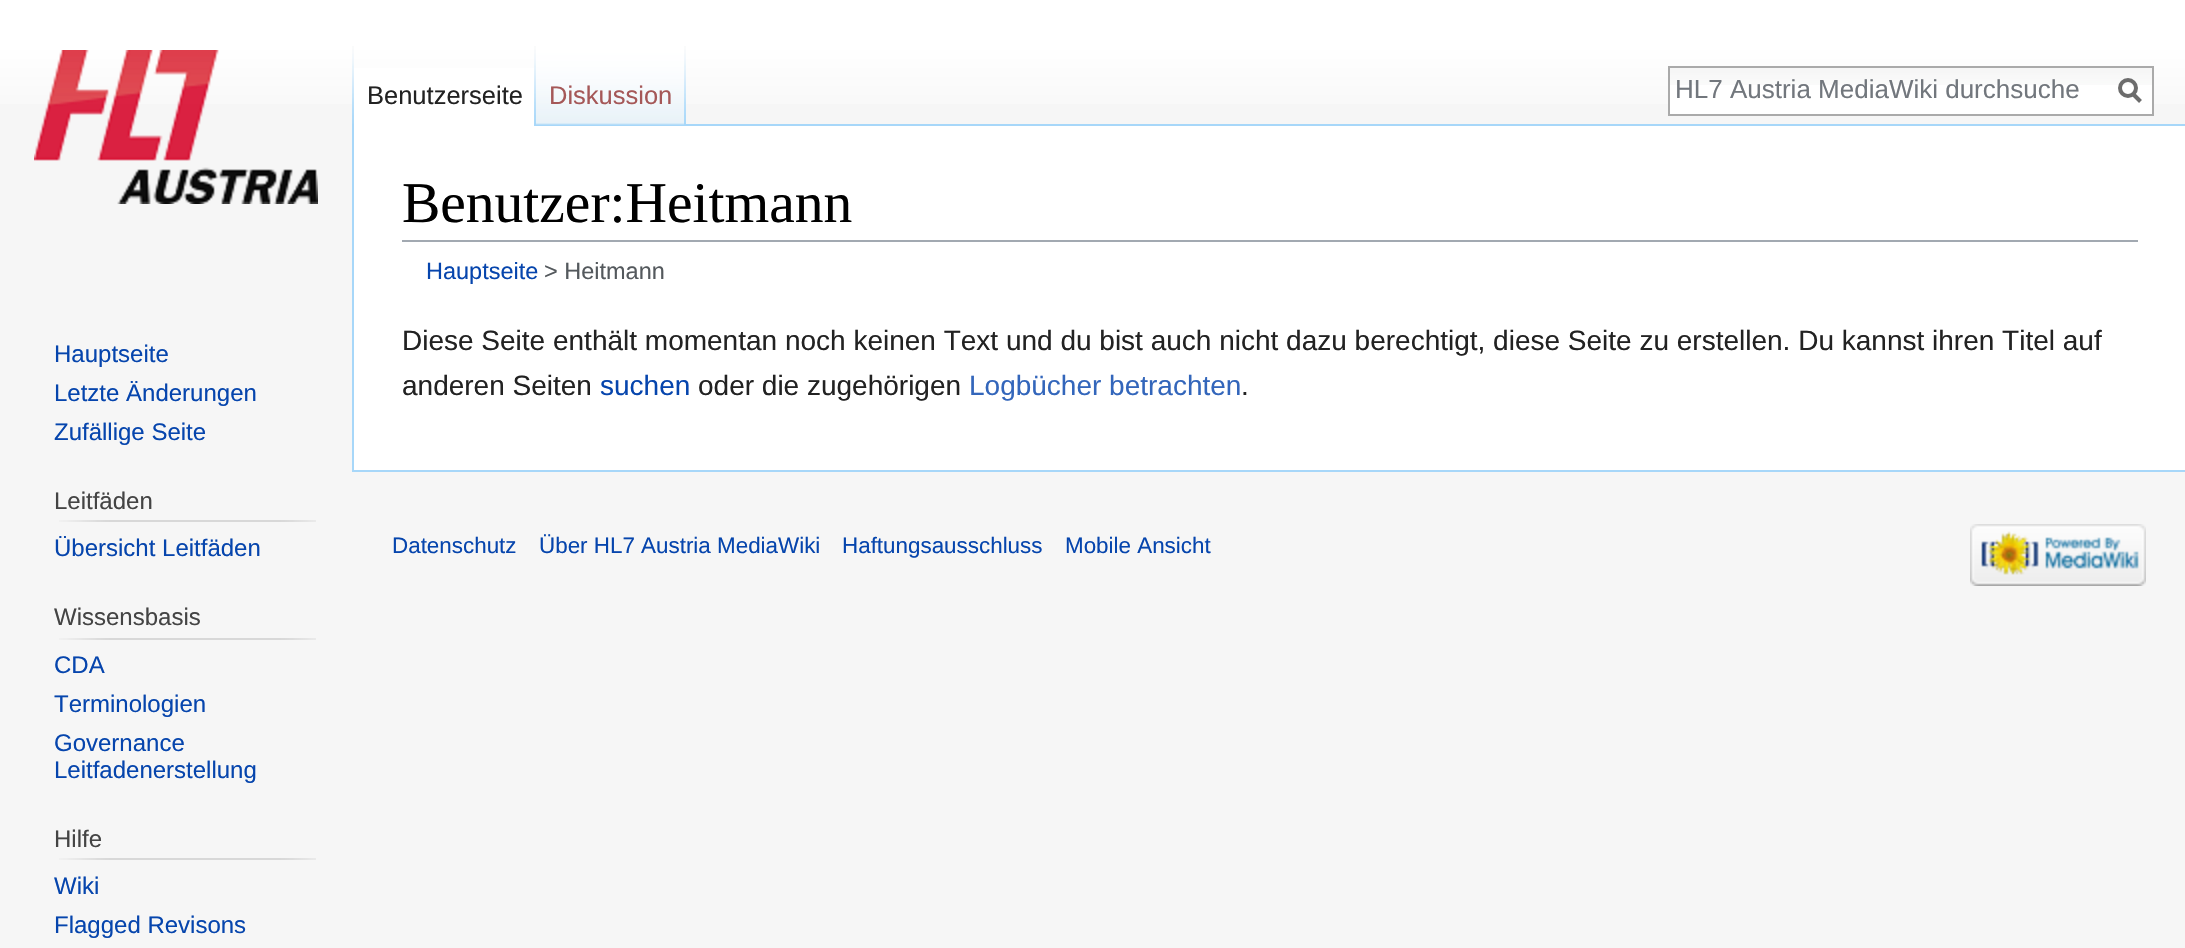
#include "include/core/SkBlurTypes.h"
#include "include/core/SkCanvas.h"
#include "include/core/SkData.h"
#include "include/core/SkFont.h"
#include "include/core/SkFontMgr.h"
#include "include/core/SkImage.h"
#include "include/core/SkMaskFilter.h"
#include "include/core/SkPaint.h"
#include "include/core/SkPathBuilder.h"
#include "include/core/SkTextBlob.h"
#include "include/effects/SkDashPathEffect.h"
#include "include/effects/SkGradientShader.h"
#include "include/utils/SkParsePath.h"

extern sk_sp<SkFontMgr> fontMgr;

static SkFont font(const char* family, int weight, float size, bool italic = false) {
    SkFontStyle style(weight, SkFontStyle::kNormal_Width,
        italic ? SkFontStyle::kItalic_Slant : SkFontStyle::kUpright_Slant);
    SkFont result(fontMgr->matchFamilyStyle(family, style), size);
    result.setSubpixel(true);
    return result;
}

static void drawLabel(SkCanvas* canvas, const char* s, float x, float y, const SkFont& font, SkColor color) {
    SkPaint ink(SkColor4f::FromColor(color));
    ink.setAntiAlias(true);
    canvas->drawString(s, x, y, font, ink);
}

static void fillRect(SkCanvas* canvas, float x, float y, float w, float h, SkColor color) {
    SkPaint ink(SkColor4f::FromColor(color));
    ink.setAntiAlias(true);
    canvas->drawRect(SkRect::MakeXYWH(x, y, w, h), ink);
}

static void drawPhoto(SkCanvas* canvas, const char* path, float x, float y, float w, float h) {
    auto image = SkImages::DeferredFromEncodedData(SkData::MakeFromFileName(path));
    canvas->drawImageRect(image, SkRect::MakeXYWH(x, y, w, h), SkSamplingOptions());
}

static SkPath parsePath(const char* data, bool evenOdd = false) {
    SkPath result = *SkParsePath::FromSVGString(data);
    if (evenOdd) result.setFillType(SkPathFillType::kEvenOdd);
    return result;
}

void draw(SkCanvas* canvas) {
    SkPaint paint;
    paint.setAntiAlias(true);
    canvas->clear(0xFFF6F6F6);
    {
        const SkColor colors[] = {0xFFFFFFFF, 0xFFF6F6F6};
        const float stops[] = {0.5f, 1};
        const SkPoint ends[] = {{1093, -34}, {1093, 126}};
        paint.setShader(SkGradientShader::MakeLinear(ends, colors, stops, 2, SkTileMode::kClamp));
        paint.setAlpha(255);
    }
    canvas->drawRect(SkRect::MakeXYWH(0, 0, 2185, 104), paint);
    drawPhoto(canvas, "assets/img1.png", 352, 46, 2, 78);
    fillRect(canvas, 354, 68, 180, 58, 0xFFFFFFFF);
    drawPhoto(canvas, "assets/img2.png", 534, 46, 2, 80);
    SkFont font1 = font("Liberation Sans", 400, 25.5f);
    drawLabel(canvas, "Benutzerseite", 367, 104, font1, 0xFF222222);
    drawPhoto(canvas, "assets/img3.png", 536, 46, 150, 80);
    drawPhoto(canvas, "assets/img4.png", 684, 46, 2, 79);
    drawLabel(canvas, "Diskussion", 549, 104, font1, 0xFFA55858);
    fillRect(canvas, 1670, 85, 482, 29, 0xFFFFFFFF);
    drawPhoto(canvas, "assets/img5.png", 1670, 68, 482, 17);
    paint.setStroke(true);
    paint.setStrokeWidth(2);
    paint.setShader(nullptr);
    paint.setColor(0xFFAAAAAA);
    canvas->drawRect(SkRect::MakeXYWH(1669, 67, 484, 48), paint);
    SkFont font2 = font("Liberation Sans", 400, 26);
    drawLabel(canvas, "HL7 Austria MediaWiki durchsuche", 1675, 98, font2, 0xFF72777D);
    paint.setStrokeWidth(4);
    paint.setColor(0xFF6C6C6C);
    canvas->drawPath(parsePath("M2140.5 101.5L2132.5 93.5"), paint);
    canvas->drawCircle(2128, 88, 8, paint);
    drawPhoto(canvas, "assets/img6.png", 34, 50, 284, 154);
    SkFont font3 = font("Liberation Sans", 400, 24);
    drawLabel(canvas, "Hauptseite", 54, 362, font3, 0xFF0645AD);
    drawLabel(canvas, "Letzte Änderungen", 54, 401, font3, 0xFF0645AD);
    drawLabel(canvas, "Zufällige Seite", 54, 440, font3, 0xFF0645AD);
    drawLabel(canvas, "Leitfäden", 54, 509, font3, 0xFF444444);
    drawPhoto(canvas, "assets/img7.png", 59, 520, 257, 2);
    drawLabel(canvas, "Übersicht Leitfäden", 54, 556, font3, 0xFF0645AD);
    drawLabel(canvas, "Wissensbasis", 54, 625, font3, 0xFF444444);
    drawPhoto(canvas, "assets/img7.png", 59, 638, 257, 2);
    drawLabel(canvas, "CDA", 54, 673, font3, 0xFF0645AD);
    drawLabel(canvas, "Terminologien", 54, 712, font3, 0xFF0645AD);
    drawLabel(canvas, "Governance", 54, 751, font3, 0xFF0645AD);
    drawLabel(canvas, "Leitfadenerstellung", 54, 778, font3, 0xFF0645AD);
    drawLabel(canvas, "Hilfe", 54, 847, font3, 0xFF444444);
    drawPhoto(canvas, "assets/img7.png", 59, 858, 257, 2);
    drawLabel(canvas, "Wiki", 54, 894, font3, 0xFF0645AD);
    drawLabel(canvas, "Flagged Revisons", 54, 933, font3, 0xFF0645AD);
    fillRect(canvas, 354, 126, 1831, 344, 0xFFFFFFFF);
    fillRect(canvas, 686, 124, 1499, 2, 0xFFA7D7F9);
    fillRect(canvas, 352, 470, 1833, 2, 0xFFA7D7F9);
    fillRect(canvas, 352, 124, 2, 348, 0xFFA7D7F9);
    fillRect(canvas, 402, 240, 1736, 2, 0xFFA2A9B1);
    SkFont font4 = font("Liberation Serif", 400, 57.5f);
    drawLabel(canvas, "Benutzer:Heitmann", 402, 222, font4, 0xFF000000);
    SkFont font5 = font("Liberation Sans", 400, 23.5f);
    drawLabel(canvas, "Hauptseite", 426, 279, font5, 0xFF0645AD);
    drawLabel(canvas, "> Heitmann", 544, 279, font5, 0xFF54595D);
    SkFont font6 = font("Liberation Sans", 400, 28);
    drawLabel(canvas, "Diese Seite enthält momentan noch keinen Text und du bist auch nicht dazu berechtigt, diese Seite zu erstellen. Du kannst ihren Titel auf", 402, 350, font6, 0xFF222222);
    drawLabel(canvas, "anderen Seiten", 402, 395, font6, 0xFF222222);
    drawLabel(canvas, "suchen", 600, 395, font6, 0xFF0645AD);
    drawLabel(canvas, "oder die zugehörigen", 698, 395, font6, 0xFF222222);
    drawLabel(canvas, "Logbücher betrachten", 969, 395, font6, 0xFF3366BB);
    drawLabel(canvas, ".", 1241, 395, font6, 0xFF222222);
    SkFont font7 = font("Liberation Sans", 400, 22.4f);
    drawLabel(canvas, "Datenschutz", 392, 553, font7, 0xFF0645AD);
    drawLabel(canvas, "Über HL7 Austria MediaWiki", 539, 553, font7, 0xFF0645AD);
    drawLabel(canvas, "Haftungsausschluss", 842, 553, font7, 0xFF0645AD);
    drawLabel(canvas, "Mobile Ansicht", 1065, 553, font7, 0xFF0645AD);
    drawPhoto(canvas, "assets/img8.png", 1970, 524, 176, 62);
}
